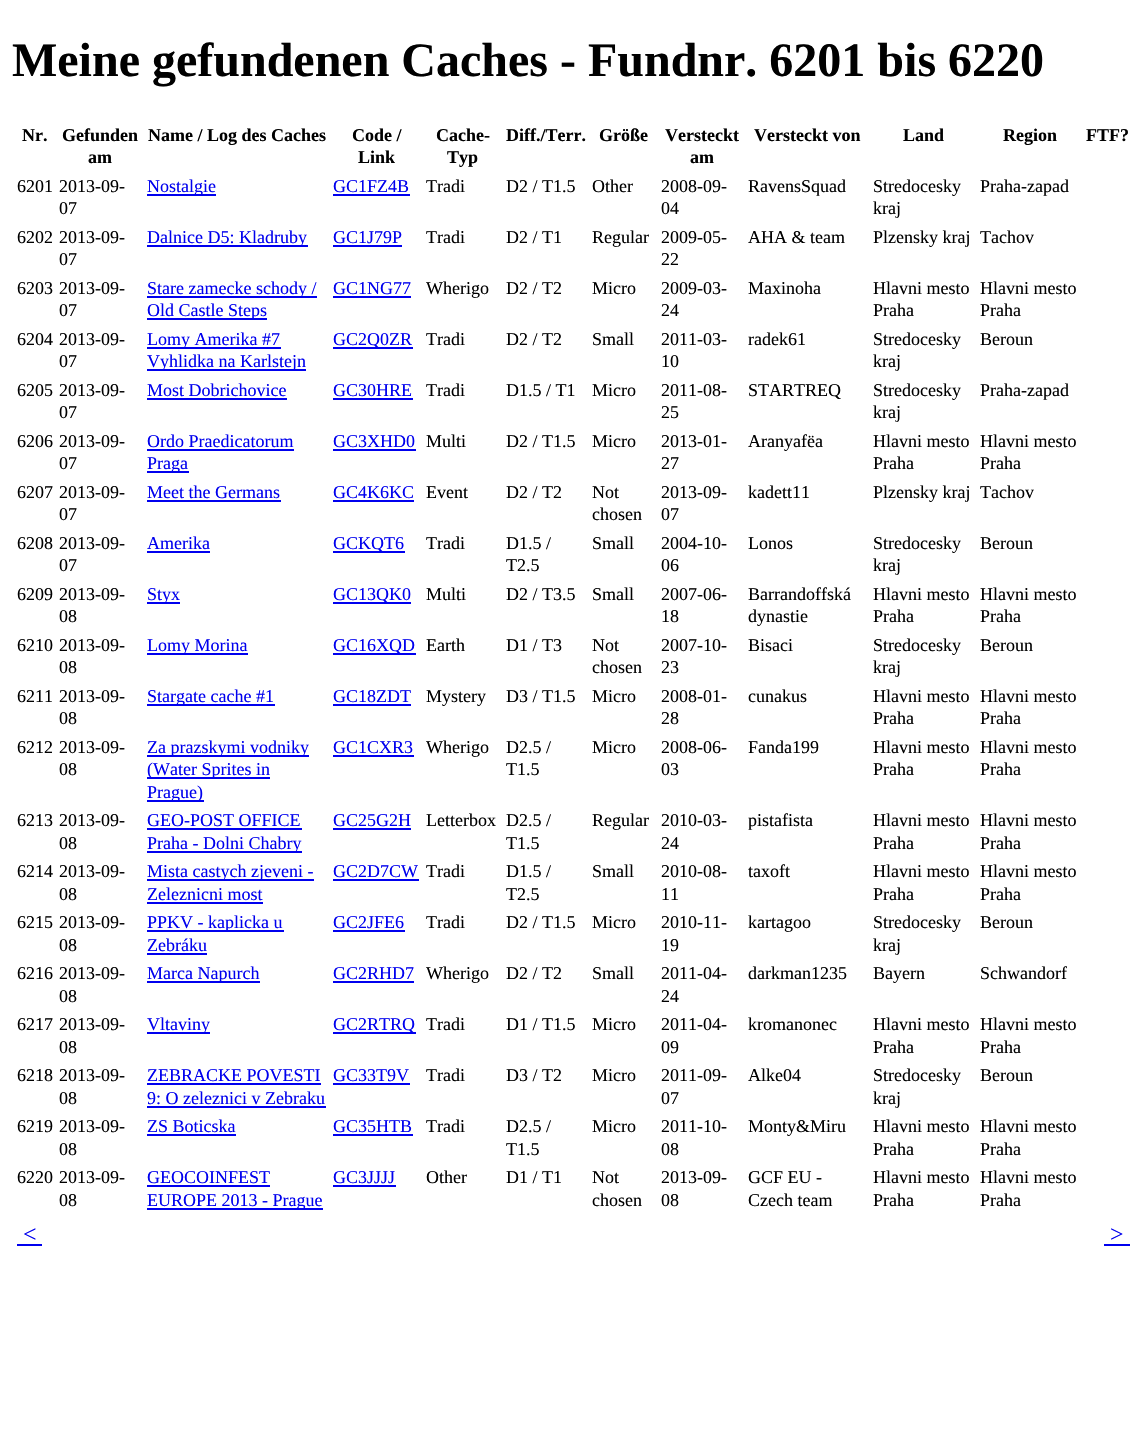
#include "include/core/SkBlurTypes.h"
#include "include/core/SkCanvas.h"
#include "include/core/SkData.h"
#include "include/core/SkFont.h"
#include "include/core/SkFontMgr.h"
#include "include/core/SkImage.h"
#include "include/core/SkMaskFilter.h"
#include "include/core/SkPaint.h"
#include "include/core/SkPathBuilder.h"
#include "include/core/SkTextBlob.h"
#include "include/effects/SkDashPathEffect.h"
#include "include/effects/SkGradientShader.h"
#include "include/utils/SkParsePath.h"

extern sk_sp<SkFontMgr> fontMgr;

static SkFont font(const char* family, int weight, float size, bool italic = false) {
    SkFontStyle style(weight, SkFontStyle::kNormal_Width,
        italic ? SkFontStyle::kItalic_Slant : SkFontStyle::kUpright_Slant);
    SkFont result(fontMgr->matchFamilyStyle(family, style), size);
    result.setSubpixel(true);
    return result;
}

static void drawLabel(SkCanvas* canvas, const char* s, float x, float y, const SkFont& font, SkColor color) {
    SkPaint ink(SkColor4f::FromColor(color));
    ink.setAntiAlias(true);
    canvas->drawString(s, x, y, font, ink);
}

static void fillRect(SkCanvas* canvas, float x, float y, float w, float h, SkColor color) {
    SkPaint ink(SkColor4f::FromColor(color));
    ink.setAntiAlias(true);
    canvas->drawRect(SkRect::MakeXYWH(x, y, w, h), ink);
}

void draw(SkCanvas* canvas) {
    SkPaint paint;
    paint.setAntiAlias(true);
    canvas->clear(0xFFFFFFFF);
    SkFont font1 = font("Liberation Serif", 700, 48);
    drawLabel(canvas, "Meine gefundenen Caches - Fundnr. 6201 bis 6220", 12, 76, font1, 0xFF000000);
    SkFont font2 = font("Liberation Serif", 700, 18);
    drawLabel(canvas, "Nr.", 22, 141, font2, 0xFF000000);
    drawLabel(canvas, "Gefunden", 62, 141, font2, 0xFF000000);
    drawLabel(canvas, "am", 88, 163, font2, 0xFF000000);
    drawLabel(canvas, "Name / Log des Caches", 148, 141, font2, 0xFF000000);
    drawLabel(canvas, "Code /", 352, 141, font2, 0xFF000000);
    drawLabel(canvas, "Link", 358, 163, font2, 0xFF000000);
    drawLabel(canvas, "Cache-", 436, 141, font2, 0xFF000000);
    drawLabel(canvas, "Typ", 447, 163, font2, 0xFF000000);
    drawLabel(canvas, "Diff./Terr.", 506, 141, font2, 0xFF000000);
    drawLabel(canvas, "Größe", 599, 141, font2, 0xFF000000);
    drawLabel(canvas, "Versteckt", 665, 141, font2, 0xFF000000);
    drawLabel(canvas, "am", 690, 163, font2, 0xFF000000);
    drawLabel(canvas, "Versteckt von", 754, 141, font2, 0xFF000000);
    drawLabel(canvas, "Land", 903, 141, font2, 0xFF000000);
    drawLabel(canvas, "Region", 1003, 141, font2, 0xFF000000);
    drawLabel(canvas, "FTF?", 1086, 141, font2, 0xFF000000);
    SkFont font3 = font("Liberation Serif", 400, 18);
    drawLabel(canvas, "6201", 17, 192, font3, 0xFF000000);
    drawLabel(canvas, "2013-09-", 59, 192, font3, 0xFF000000);
    drawLabel(canvas, "07", 59, 214, font3, 0xFF000000);
    fillRect(canvas, 147, 194, 69, 2, 0xFF0000EE);
    drawLabel(canvas, "Nostalgie", 147, 192, font3, 0xFF0000EE);
    drawLabel(canvas, "GC1FZ4B", 333, 192, font3, 0xFF0000EE);
    fillRect(canvas, 333, 194, 77, 2, 0xFF0000EE);
    drawLabel(canvas, "Tradi", 426, 192, font3, 0xFF000000);
    drawLabel(canvas, "D2 / T1.5", 506, 192, font3, 0xFF000000);
    drawLabel(canvas, "Other", 592, 192, font3, 0xFF000000);
    drawLabel(canvas, "2008-09-", 661, 192, font3, 0xFF000000);
    drawLabel(canvas, "04", 661, 214, font3, 0xFF000000);
    drawLabel(canvas, "RavensSquad", 748, 192, font3, 0xFF000000);
    drawLabel(canvas, "Stredocesky", 873, 192, font3, 0xFF000000);
    drawLabel(canvas, "kraj", 873, 214, font3, 0xFF000000);
    drawLabel(canvas, "Praha-zapad", 980, 192, font3, 0xFF000000);
    drawLabel(canvas, "6202", 17, 243, font3, 0xFF000000);
    drawLabel(canvas, "2013-09-", 59, 243, font3, 0xFF000000);
    drawLabel(canvas, "07", 59, 265, font3, 0xFF000000);
    fillRect(canvas, 147, 245, 161, 2, 0xFF0000EE);
    drawLabel(canvas, "Dalnice D5: Kladruby", 147, 243, font3, 0xFF0000EE);
    drawLabel(canvas, "GC1J79P", 333, 243, font3, 0xFF0000EE);
    fillRect(canvas, 333, 245, 69, 2, 0xFF0000EE);
    drawLabel(canvas, "Tradi", 426, 243, font3, 0xFF000000);
    drawLabel(canvas, "D2 / T1", 506, 243, font3, 0xFF000000);
    drawLabel(canvas, "Regular", 592, 243, font3, 0xFF000000);
    drawLabel(canvas, "2009-05-", 661, 243, font3, 0xFF000000);
    drawLabel(canvas, "22", 661, 265, font3, 0xFF000000);
    drawLabel(canvas, "AHA & team", 748, 243, font3, 0xFF000000);
    drawLabel(canvas, "Plzensky kraj", 873, 243, font3, 0xFF000000);
    drawLabel(canvas, "Tachov", 980, 243, font3, 0xFF000000);
    drawLabel(canvas, "6203", 17, 294, font3, 0xFF000000);
    drawLabel(canvas, "2013-09-", 59, 294, font3, 0xFF000000);
    drawLabel(canvas, "07", 59, 316, font3, 0xFF000000);
    fillRect(canvas, 147, 296, 170, 2, 0xFF0000EE);
    drawLabel(canvas, "Stare zamecke schody /", 147, 294, font3, 0xFF0000EE);
    fillRect(canvas, 147, 318, 120, 2, 0xFF0000EE);
    drawLabel(canvas, "Old Castle Steps", 147, 316, font3, 0xFF0000EE);
    drawLabel(canvas, "GC1NG77", 333, 294, font3, 0xFF0000EE);
    fillRect(canvas, 333, 296, 78, 2, 0xFF0000EE);
    drawLabel(canvas, "Wherigo", 426, 294, font3, 0xFF000000);
    drawLabel(canvas, "D2 / T2", 506, 294, font3, 0xFF000000);
    drawLabel(canvas, "Micro", 592, 294, font3, 0xFF000000);
    drawLabel(canvas, "2009-03-", 661, 294, font3, 0xFF000000);
    drawLabel(canvas, "24", 661, 316, font3, 0xFF000000);
    drawLabel(canvas, "Maxinoha", 748, 294, font3, 0xFF000000);
    drawLabel(canvas, "Hlavni mesto", 873, 294, font3, 0xFF000000);
    drawLabel(canvas, "Praha", 873, 316, font3, 0xFF000000);
    drawLabel(canvas, "Hlavni mesto", 980, 294, font3, 0xFF000000);
    drawLabel(canvas, "Praha", 980, 316, font3, 0xFF000000);
    drawLabel(canvas, "6204", 17, 345, font3, 0xFF000000);
    drawLabel(canvas, "2013-09-", 59, 345, font3, 0xFF000000);
    drawLabel(canvas, "07", 59, 367, font3, 0xFF000000);
    fillRect(canvas, 147, 347, 134, 2, 0xFF0000EE);
    drawLabel(canvas, "Lomy Amerika #7", 147, 345, font3, 0xFF0000EE);
    fillRect(canvas, 147, 369, 159, 2, 0xFF0000EE);
    drawLabel(canvas, "Vyhlidka na Karlstejn", 147, 367, font3, 0xFF0000EE);
    fillRect(canvas, 333, 347, 80, 2, 0xFF0000EE);
    drawLabel(canvas, "GC2Q0ZR", 333, 345, font3, 0xFF0000EE);
    drawLabel(canvas, "Tradi", 426, 345, font3, 0xFF000000);
    drawLabel(canvas, "D2 / T2", 506, 345, font3, 0xFF000000);
    drawLabel(canvas, "Small", 592, 345, font3, 0xFF000000);
    drawLabel(canvas, "2011-03-", 661, 345, font3, 0xFF000000);
    drawLabel(canvas, "10", 661, 367, font3, 0xFF000000);
    drawLabel(canvas, "radek61", 748, 345, font3, 0xFF000000);
    drawLabel(canvas, "Stredocesky", 873, 345, font3, 0xFF000000);
    drawLabel(canvas, "kraj", 873, 367, font3, 0xFF000000);
    drawLabel(canvas, "Beroun", 980, 345, font3, 0xFF000000);
    drawLabel(canvas, "6205", 17, 396, font3, 0xFF000000);
    drawLabel(canvas, "2013-09-", 59, 396, font3, 0xFF000000);
    drawLabel(canvas, "07", 59, 418, font3, 0xFF000000);
    drawLabel(canvas, "Most Dobrichovice", 147, 396, font3, 0xFF0000EE);
    fillRect(canvas, 147, 398, 140, 2, 0xFF0000EE);
    drawLabel(canvas, "GC30HRE", 333, 396, font3, 0xFF0000EE);
    fillRect(canvas, 333, 398, 80, 2, 0xFF0000EE);
    drawLabel(canvas, "Tradi", 426, 396, font3, 0xFF000000);
    drawLabel(canvas, "D1.5 / T1", 506, 396, font3, 0xFF000000);
    drawLabel(canvas, "Micro", 592, 396, font3, 0xFF000000);
    drawLabel(canvas, "2011-08-", 661, 396, font3, 0xFF000000);
    drawLabel(canvas, "25", 661, 418, font3, 0xFF000000);
    drawLabel(canvas, "STARTREQ", 748, 396, font3, 0xFF000000);
    drawLabel(canvas, "Stredocesky", 873, 396, font3, 0xFF000000);
    drawLabel(canvas, "kraj", 873, 418, font3, 0xFF000000);
    drawLabel(canvas, "Praha-zapad", 980, 396, font3, 0xFF000000);
    drawLabel(canvas, "6206", 17, 447, font3, 0xFF000000);
    drawLabel(canvas, "2013-09-", 59, 447, font3, 0xFF000000);
    drawLabel(canvas, "07", 59, 469, font3, 0xFF000000);
    drawLabel(canvas, "Ordo Praedicatorum", 147, 447, font3, 0xFF0000EE);
    fillRect(canvas, 147, 449, 147, 2, 0xFF0000EE);
    fillRect(canvas, 147, 471, 42, 2, 0xFF0000EE);
    drawLabel(canvas, "Praga", 147, 469, font3, 0xFF0000EE);
    drawLabel(canvas, "GC3XHD0", 333, 447, font3, 0xFF0000EE);
    fillRect(canvas, 333, 449, 83, 2, 0xFF0000EE);
    drawLabel(canvas, "Multi", 426, 447, font3, 0xFF000000);
    drawLabel(canvas, "D2 / T1.5", 506, 447, font3, 0xFF000000);
    drawLabel(canvas, "Micro", 592, 447, font3, 0xFF000000);
    drawLabel(canvas, "2013-01-", 661, 447, font3, 0xFF000000);
    drawLabel(canvas, "27", 661, 469, font3, 0xFF000000);
    drawLabel(canvas, "Aranyafëa", 748, 447, font3, 0xFF000000);
    drawLabel(canvas, "Hlavni mesto", 873, 447, font3, 0xFF000000);
    drawLabel(canvas, "Praha", 873, 469, font3, 0xFF000000);
    drawLabel(canvas, "Hlavni mesto", 980, 447, font3, 0xFF000000);
    drawLabel(canvas, "Praha", 980, 469, font3, 0xFF000000);
    drawLabel(canvas, "6207", 17, 498, font3, 0xFF000000);
    drawLabel(canvas, "2013-09-", 59, 498, font3, 0xFF000000);
    drawLabel(canvas, "07", 59, 520, font3, 0xFF000000);
    drawLabel(canvas, "Meet the Germans", 147, 498, font3, 0xFF0000EE);
    fillRect(canvas, 147, 500, 134, 2, 0xFF0000EE);
    drawLabel(canvas, "GC4K6KC", 333, 498, font3, 0xFF0000EE);
    fillRect(canvas, 333, 500, 81, 2, 0xFF0000EE);
    drawLabel(canvas, "Event", 426, 498, font3, 0xFF000000);
    drawLabel(canvas, "D2 / T2", 506, 498, font3, 0xFF000000);
    drawLabel(canvas, "Not", 592, 498, font3, 0xFF000000);
    drawLabel(canvas, "chosen", 592, 520, font3, 0xFF000000);
    drawLabel(canvas, "2013-09-", 661, 498, font3, 0xFF000000);
    drawLabel(canvas, "07", 661, 520, font3, 0xFF000000);
    drawLabel(canvas, "kadett11", 748, 498, font3, 0xFF000000);
    drawLabel(canvas, "Plzensky kraj", 873, 498, font3, 0xFF000000);
    drawLabel(canvas, "Tachov", 980, 498, font3, 0xFF000000);
    drawLabel(canvas, "6208", 17, 549, font3, 0xFF000000);
    drawLabel(canvas, "2013-09-", 59, 549, font3, 0xFF000000);
    drawLabel(canvas, "07", 59, 571, font3, 0xFF000000);
    drawLabel(canvas, "Amerika", 147, 549, font3, 0xFF0000EE);
    fillRect(canvas, 147, 551, 63, 2, 0xFF0000EE);
    fillRect(canvas, 333, 551, 72, 2, 0xFF0000EE);
    drawLabel(canvas, "GCKQT6", 333, 549, font3, 0xFF0000EE);
    drawLabel(canvas, "Tradi", 426, 549, font3, 0xFF000000);
    drawLabel(canvas, "D1.5 /", 506, 549, font3, 0xFF000000);
    drawLabel(canvas, "T2.5", 506, 571, font3, 0xFF000000);
    drawLabel(canvas, "Small", 592, 549, font3, 0xFF000000);
    drawLabel(canvas, "2004-10-", 661, 549, font3, 0xFF000000);
    drawLabel(canvas, "06", 661, 571, font3, 0xFF000000);
    drawLabel(canvas, "Lonos", 748, 549, font3, 0xFF000000);
    drawLabel(canvas, "Stredocesky", 873, 549, font3, 0xFF000000);
    drawLabel(canvas, "kraj", 873, 571, font3, 0xFF000000);
    drawLabel(canvas, "Beroun", 980, 549, font3, 0xFF000000);
    drawLabel(canvas, "6209", 17, 600, font3, 0xFF000000);
    drawLabel(canvas, "2013-09-", 59, 600, font3, 0xFF000000);
    drawLabel(canvas, "08", 59, 622, font3, 0xFF000000);
    fillRect(canvas, 147, 602, 33, 2, 0xFF0000EE);
    drawLabel(canvas, "Styx", 147, 600, font3, 0xFF0000EE);
    fillRect(canvas, 333, 602, 78, 2, 0xFF0000EE);
    drawLabel(canvas, "GC13QK0", 333, 600, font3, 0xFF0000EE);
    drawLabel(canvas, "Multi", 426, 600, font3, 0xFF000000);
    drawLabel(canvas, "D2 / T3.5", 506, 600, font3, 0xFF000000);
    drawLabel(canvas, "Small", 592, 600, font3, 0xFF000000);
    drawLabel(canvas, "2007-06-", 661, 600, font3, 0xFF000000);
    drawLabel(canvas, "18", 661, 622, font3, 0xFF000000);
    drawLabel(canvas, "Barrandoffská", 748, 600, font3, 0xFF000000);
    drawLabel(canvas, "dynastie", 748, 622, font3, 0xFF000000);
    drawLabel(canvas, "Hlavni mesto", 873, 600, font3, 0xFF000000);
    drawLabel(canvas, "Praha", 873, 622, font3, 0xFF000000);
    drawLabel(canvas, "Hlavni mesto", 980, 600, font3, 0xFF000000);
    drawLabel(canvas, "Praha", 980, 622, font3, 0xFF000000);
    drawLabel(canvas, "6210", 17, 651, font3, 0xFF000000);
    drawLabel(canvas, "2013-09-", 59, 651, font3, 0xFF000000);
    drawLabel(canvas, "08", 59, 673, font3, 0xFF000000);
    fillRect(canvas, 147, 653, 101, 2, 0xFF0000EE);
    drawLabel(canvas, "Lomy Morina", 147, 651, font3, 0xFF0000EE);
    fillRect(canvas, 333, 653, 83, 2, 0xFF0000EE);
    drawLabel(canvas, "GC16XQD", 333, 651, font3, 0xFF0000EE);
    drawLabel(canvas, "Earth", 426, 651, font3, 0xFF000000);
    drawLabel(canvas, "D1 / T3", 506, 651, font3, 0xFF000000);
    drawLabel(canvas, "Not", 592, 651, font3, 0xFF000000);
    drawLabel(canvas, "chosen", 592, 673, font3, 0xFF000000);
    drawLabel(canvas, "2007-10-", 661, 651, font3, 0xFF000000);
    drawLabel(canvas, "23", 661, 673, font3, 0xFF000000);
    drawLabel(canvas, "Bisaci", 748, 651, font3, 0xFF000000);
    drawLabel(canvas, "Stredocesky", 873, 651, font3, 0xFF000000);
    drawLabel(canvas, "kraj", 873, 673, font3, 0xFF000000);
    drawLabel(canvas, "Beroun", 980, 651, font3, 0xFF000000);
    drawLabel(canvas, "6211", 17, 702, font3, 0xFF000000);
    drawLabel(canvas, "2013-09-", 59, 702, font3, 0xFF000000);
    drawLabel(canvas, "08", 59, 724, font3, 0xFF000000);
    fillRect(canvas, 147, 704, 128, 2, 0xFF0000EE);
    drawLabel(canvas, "Stargate cache #1", 147, 702, font3, 0xFF0000EE);
    drawLabel(canvas, "GC18ZDT", 333, 702, font3, 0xFF0000EE);
    fillRect(canvas, 333, 704, 78, 2, 0xFF0000EE);
    drawLabel(canvas, "Mystery", 426, 702, font3, 0xFF000000);
    drawLabel(canvas, "D3 / T1.5", 506, 702, font3, 0xFF000000);
    drawLabel(canvas, "Micro", 592, 702, font3, 0xFF000000);
    drawLabel(canvas, "2008-01-", 661, 702, font3, 0xFF000000);
    drawLabel(canvas, "28", 661, 724, font3, 0xFF000000);
    drawLabel(canvas, "cunakus", 748, 702, font3, 0xFF000000);
    drawLabel(canvas, "Hlavni mesto", 873, 702, font3, 0xFF000000);
    drawLabel(canvas, "Praha", 873, 724, font3, 0xFF000000);
    drawLabel(canvas, "Hlavni mesto", 980, 702, font3, 0xFF000000);
    drawLabel(canvas, "Praha", 980, 724, font3, 0xFF000000);
    drawLabel(canvas, "6212", 17, 753, font3, 0xFF000000);
    drawLabel(canvas, "2013-09-", 59, 753, font3, 0xFF000000);
    drawLabel(canvas, "08", 59, 775, font3, 0xFF000000);
    fillRect(canvas, 147, 755, 162, 2, 0xFF0000EE);
    drawLabel(canvas, "Za prazskymi vodniky", 147, 753, font3, 0xFF0000EE);
    fillRect(canvas, 147, 777, 123, 2, 0xFF0000EE);
    drawLabel(canvas, "(Water Sprites in", 147, 775, font3, 0xFF0000EE);
    fillRect(canvas, 147, 800, 57, 2, 0xFF0000EE);
    drawLabel(canvas, "Prague)", 147, 798, font3, 0xFF0000EE);
    drawLabel(canvas, "GC1CXR3", 333, 753, font3, 0xFF0000EE);
    fillRect(canvas, 333, 755, 81, 2, 0xFF0000EE);
    drawLabel(canvas, "Wherigo", 426, 753, font3, 0xFF000000);
    drawLabel(canvas, "D2.5 /", 506, 753, font3, 0xFF000000);
    drawLabel(canvas, "T1.5", 506, 775, font3, 0xFF000000);
    drawLabel(canvas, "Micro", 592, 753, font3, 0xFF000000);
    drawLabel(canvas, "2008-06-", 661, 753, font3, 0xFF000000);
    drawLabel(canvas, "03", 661, 775, font3, 0xFF000000);
    drawLabel(canvas, "Fanda199", 748, 753, font3, 0xFF000000);
    drawLabel(canvas, "Hlavni mesto", 873, 753, font3, 0xFF000000);
    drawLabel(canvas, "Praha", 873, 775, font3, 0xFF000000);
    drawLabel(canvas, "Hlavni mesto", 980, 753, font3, 0xFF000000);
    drawLabel(canvas, "Praha", 980, 775, font3, 0xFF000000);
    drawLabel(canvas, "6213", 17, 826, font3, 0xFF000000);
    drawLabel(canvas, "2013-09-", 59, 826, font3, 0xFF000000);
    drawLabel(canvas, "08", 59, 849, font3, 0xFF000000);
    drawLabel(canvas, "GEO-POST OFFICE", 147, 826, font3, 0xFF0000EE);
    fillRect(canvas, 147, 828, 155, 2, 0xFF0000EE);
    fillRect(canvas, 147, 851, 155, 2, 0xFF0000EE);
    drawLabel(canvas, "Praha - Dolni Chabry", 147, 849, font3, 0xFF0000EE);
    drawLabel(canvas, "GC25G2H", 333, 826, font3, 0xFF0000EE);
    fillRect(canvas, 333, 828, 78, 2, 0xFF0000EE);
    drawLabel(canvas, "Letterbox", 426, 826, font3, 0xFF000000);
    drawLabel(canvas, "D2.5 /", 506, 826, font3, 0xFF000000);
    drawLabel(canvas, "T1.5", 506, 849, font3, 0xFF000000);
    drawLabel(canvas, "Regular", 592, 826, font3, 0xFF000000);
    drawLabel(canvas, "2010-03-", 661, 826, font3, 0xFF000000);
    drawLabel(canvas, "24", 661, 849, font3, 0xFF000000);
    drawLabel(canvas, "pistafista", 748, 826, font3, 0xFF000000);
    drawLabel(canvas, "Hlavni mesto", 873, 826, font3, 0xFF000000);
    drawLabel(canvas, "Praha", 873, 849, font3, 0xFF000000);
    drawLabel(canvas, "Hlavni mesto", 980, 826, font3, 0xFF000000);
    drawLabel(canvas, "Praha", 980, 849, font3, 0xFF000000);
    drawLabel(canvas, "6214", 17, 877, font3, 0xFF000000);
    drawLabel(canvas, "2013-09-", 59, 877, font3, 0xFF000000);
    drawLabel(canvas, "08", 59, 900, font3, 0xFF000000);
    fillRect(canvas, 147, 879, 167, 2, 0xFF0000EE);
    drawLabel(canvas, "Mista castych zjeveni -", 147, 877, font3, 0xFF0000EE);
    drawLabel(canvas, "Zeleznicni most", 147, 900, font3, 0xFF0000EE);
    fillRect(canvas, 147, 902, 116, 2, 0xFF0000EE);
    drawLabel(canvas, "GC2D7CW", 333, 877, font3, 0xFF0000EE);
    fillRect(canvas, 333, 879, 86, 2, 0xFF0000EE);
    drawLabel(canvas, "Tradi", 426, 877, font3, 0xFF000000);
    drawLabel(canvas, "D1.5 /", 506, 877, font3, 0xFF000000);
    drawLabel(canvas, "T2.5", 506, 900, font3, 0xFF000000);
    drawLabel(canvas, "Small", 592, 877, font3, 0xFF000000);
    drawLabel(canvas, "2010-08-", 661, 877, font3, 0xFF000000);
    drawLabel(canvas, "11", 661, 900, font3, 0xFF000000);
    drawLabel(canvas, "taxoft", 748, 877, font3, 0xFF000000);
    drawLabel(canvas, "Hlavni mesto", 873, 877, font3, 0xFF000000);
    drawLabel(canvas, "Praha", 873, 900, font3, 0xFF000000);
    drawLabel(canvas, "Hlavni mesto", 980, 877, font3, 0xFF000000);
    drawLabel(canvas, "Praha", 980, 900, font3, 0xFF000000);
    drawLabel(canvas, "6215", 17, 928, font3, 0xFF000000);
    drawLabel(canvas, "2013-09-", 59, 928, font3, 0xFF000000);
    drawLabel(canvas, "08", 59, 951, font3, 0xFF000000);
    fillRect(canvas, 147, 930, 137, 2, 0xFF0000EE);
    drawLabel(canvas, "PPKV - kaplicka u", 147, 928, font3, 0xFF0000EE);
    drawLabel(canvas, "Zebráku", 147, 951, font3, 0xFF0000EE);
    fillRect(canvas, 147, 953, 60, 2, 0xFF0000EE);
    drawLabel(canvas, "GC2JFE6", 333, 928, font3, 0xFF0000EE);
    fillRect(canvas, 333, 930, 72, 2, 0xFF0000EE);
    drawLabel(canvas, "Tradi", 426, 928, font3, 0xFF000000);
    drawLabel(canvas, "D2 / T1.5", 506, 928, font3, 0xFF000000);
    drawLabel(canvas, "Micro", 592, 928, font3, 0xFF000000);
    drawLabel(canvas, "2010-11-", 661, 928, font3, 0xFF000000);
    drawLabel(canvas, "19", 661, 951, font3, 0xFF000000);
    drawLabel(canvas, "kartagoo", 748, 928, font3, 0xFF000000);
    drawLabel(canvas, "Stredocesky", 873, 928, font3, 0xFF000000);
    drawLabel(canvas, "kraj", 873, 951, font3, 0xFF000000);
    drawLabel(canvas, "Beroun", 980, 928, font3, 0xFF000000);
    drawLabel(canvas, "6216", 17, 979, font3, 0xFF000000);
    drawLabel(canvas, "2013-09-", 59, 979, font3, 0xFF000000);
    drawLabel(canvas, "08", 59, 1002, font3, 0xFF000000);
    fillRect(canvas, 147, 981, 113, 2, 0xFF0000EE);
    drawLabel(canvas, "Marca Napurch", 147, 979, font3, 0xFF0000EE);
    drawLabel(canvas, "GC2RHD7", 333, 979, font3, 0xFF0000EE);
    fillRect(canvas, 333, 981, 81, 2, 0xFF0000EE);
    drawLabel(canvas, "Wherigo", 426, 979, font3, 0xFF000000);
    drawLabel(canvas, "D2 / T2", 506, 979, font3, 0xFF000000);
    drawLabel(canvas, "Small", 592, 979, font3, 0xFF000000);
    drawLabel(canvas, "2011-04-", 661, 979, font3, 0xFF000000);
    drawLabel(canvas, "24", 661, 1002, font3, 0xFF000000);
    drawLabel(canvas, "darkman1235", 748, 979, font3, 0xFF000000);
    drawLabel(canvas, "Bayern", 873, 979, font3, 0xFF000000);
    drawLabel(canvas, "Schwandorf", 980, 979, font3, 0xFF000000);
    drawLabel(canvas, "6217", 17, 1030, font3, 0xFF000000);
    drawLabel(canvas, "2013-09-", 59, 1030, font3, 0xFF000000);
    drawLabel(canvas, "08", 59, 1053, font3, 0xFF000000);
    fillRect(canvas, 147, 1032, 63, 2, 0xFF0000EE);
    drawLabel(canvas, "Vltaviny", 147, 1030, font3, 0xFF0000EE);
    fillRect(canvas, 333, 1032, 83, 2, 0xFF0000EE);
    drawLabel(canvas, "GC2RTRQ", 333, 1030, font3, 0xFF0000EE);
    drawLabel(canvas, "Tradi", 426, 1030, font3, 0xFF000000);
    drawLabel(canvas, "D1 / T1.5", 506, 1030, font3, 0xFF000000);
    drawLabel(canvas, "Micro", 592, 1030, font3, 0xFF000000);
    drawLabel(canvas, "2011-04-", 661, 1030, font3, 0xFF000000);
    drawLabel(canvas, "09", 661, 1053, font3, 0xFF000000);
    drawLabel(canvas, "kromanonec", 748, 1030, font3, 0xFF000000);
    drawLabel(canvas, "Hlavni mesto", 873, 1030, font3, 0xFF000000);
    drawLabel(canvas, "Praha", 873, 1053, font3, 0xFF000000);
    drawLabel(canvas, "Hlavni mesto", 980, 1030, font3, 0xFF000000);
    drawLabel(canvas, "Praha", 980, 1053, font3, 0xFF000000);
    drawLabel(canvas, "6218", 17, 1081, font3, 0xFF000000);
    drawLabel(canvas, "2013-09-", 59, 1081, font3, 0xFF000000);
    drawLabel(canvas, "08", 59, 1104, font3, 0xFF000000);
    drawLabel(canvas, "ZEBRACKE POVESTI", 147, 1081, font3, 0xFF0000EE);
    fillRect(canvas, 147, 1083, 174, 2, 0xFF0000EE);
    drawLabel(canvas, "9: O zeleznici v Zebraku", 147, 1104, font3, 0xFF0000EE);
    fillRect(canvas, 147, 1106, 179, 2, 0xFF0000EE);
    drawLabel(canvas, "GC33T9V", 333, 1081, font3, 0xFF0000EE);
    fillRect(canvas, 333, 1083, 77, 2, 0xFF0000EE);
    drawLabel(canvas, "Tradi", 426, 1081, font3, 0xFF000000);
    drawLabel(canvas, "D3 / T2", 506, 1081, font3, 0xFF000000);
    drawLabel(canvas, "Micro", 592, 1081, font3, 0xFF000000);
    drawLabel(canvas, "2011-09-", 661, 1081, font3, 0xFF000000);
    drawLabel(canvas, "07", 661, 1104, font3, 0xFF000000);
    drawLabel(canvas, "Alke04", 748, 1081, font3, 0xFF000000);
    drawLabel(canvas, "Stredocesky", 873, 1081, font3, 0xFF000000);
    drawLabel(canvas, "kraj", 873, 1104, font3, 0xFF000000);
    drawLabel(canvas, "Beroun", 980, 1081, font3, 0xFF000000);
    drawLabel(canvas, "6219", 17, 1132, font3, 0xFF000000);
    drawLabel(canvas, "2013-09-", 59, 1132, font3, 0xFF000000);
    drawLabel(canvas, "08", 59, 1155, font3, 0xFF000000);
    drawLabel(canvas, "ZS Boticska", 147, 1132, font3, 0xFF0000EE);
    fillRect(canvas, 147, 1134, 89, 2, 0xFF0000EE);
    drawLabel(canvas, "GC35HTB", 333, 1132, font3, 0xFF0000EE);
    fillRect(canvas, 333, 1134, 80, 2, 0xFF0000EE);
    drawLabel(canvas, "Tradi", 426, 1132, font3, 0xFF000000);
    drawLabel(canvas, "D2.5 /", 506, 1132, font3, 0xFF000000);
    drawLabel(canvas, "T1.5", 506, 1155, font3, 0xFF000000);
    drawLabel(canvas, "Micro", 592, 1132, font3, 0xFF000000);
    drawLabel(canvas, "2011-10-", 661, 1132, font3, 0xFF000000);
    drawLabel(canvas, "08", 661, 1155, font3, 0xFF000000);
    drawLabel(canvas, "Monty&Miru", 748, 1132, font3, 0xFF000000);
    drawLabel(canvas, "Hlavni mesto", 873, 1132, font3, 0xFF000000);
    drawLabel(canvas, "Praha", 873, 1155, font3, 0xFF000000);
    drawLabel(canvas, "Hlavni mesto", 980, 1132, font3, 0xFF000000);
    drawLabel(canvas, "Praha", 980, 1155, font3, 0xFF000000);
    drawLabel(canvas, "6220", 17, 1183, font3, 0xFF000000);
    drawLabel(canvas, "2013-09-", 59, 1183, font3, 0xFF000000);
    drawLabel(canvas, "08", 59, 1206, font3, 0xFF000000);
    drawLabel(canvas, "GEOCOINFEST", 147, 1183, font3, 0xFF0000EE);
    fillRect(canvas, 147, 1185, 123, 2, 0xFF0000EE);
    fillRect(canvas, 147, 1208, 176, 2, 0xFF0000EE);
    drawLabel(canvas, "EUROPE 2013 - Prague", 147, 1206, font3, 0xFF0000EE);
    drawLabel(canvas, "GC3JJJJ", 333, 1183, font3, 0xFF0000EE);
    fillRect(canvas, 333, 1185, 63, 2, 0xFF0000EE);
    drawLabel(canvas, "Other", 426, 1183, font3, 0xFF000000);
    drawLabel(canvas, "D1 / T1", 506, 1183, font3, 0xFF000000);
    drawLabel(canvas, "Not", 592, 1183, font3, 0xFF000000);
    drawLabel(canvas, "chosen", 592, 1206, font3, 0xFF000000);
    drawLabel(canvas, "2013-09-", 661, 1183, font3, 0xFF000000);
    drawLabel(canvas, "08", 661, 1206, font3, 0xFF000000);
    drawLabel(canvas, "GCF EU -", 748, 1183, font3, 0xFF000000);
    drawLabel(canvas, "Czech team", 748, 1206, font3, 0xFF000000);
    drawLabel(canvas, "Hlavni mesto", 873, 1183, font3, 0xFF000000);
    drawLabel(canvas, "Praha", 873, 1206, font3, 0xFF000000);
    drawLabel(canvas, "Hlavni mesto", 980, 1183, font3, 0xFF000000);
    drawLabel(canvas, "Praha", 980, 1206, font3, 0xFF000000);
    SkFont font4 = font("Liberation Serif", 400, 24);
    drawLabel(canvas, "<", 23, 1242, font4, 0xFF0000EE);
    fillRect(canvas, 17, 1244, 25, 2, 0xFF0000EE);
    drawLabel(canvas, ">", 1110, 1242, font4, 0xFF0000EE);
    fillRect(canvas, 1104, 1244, 26, 2, 0xFF0000EE);
}
